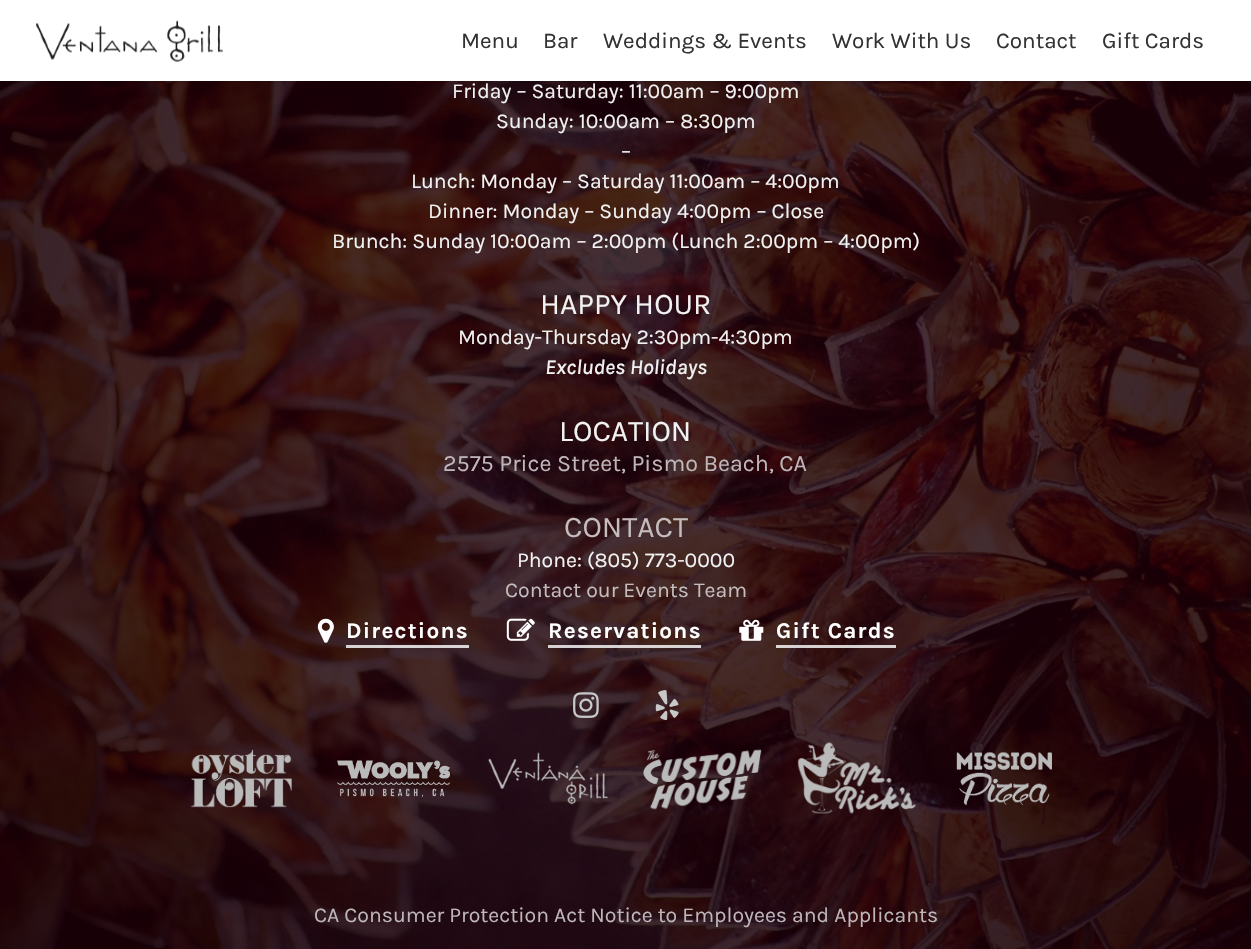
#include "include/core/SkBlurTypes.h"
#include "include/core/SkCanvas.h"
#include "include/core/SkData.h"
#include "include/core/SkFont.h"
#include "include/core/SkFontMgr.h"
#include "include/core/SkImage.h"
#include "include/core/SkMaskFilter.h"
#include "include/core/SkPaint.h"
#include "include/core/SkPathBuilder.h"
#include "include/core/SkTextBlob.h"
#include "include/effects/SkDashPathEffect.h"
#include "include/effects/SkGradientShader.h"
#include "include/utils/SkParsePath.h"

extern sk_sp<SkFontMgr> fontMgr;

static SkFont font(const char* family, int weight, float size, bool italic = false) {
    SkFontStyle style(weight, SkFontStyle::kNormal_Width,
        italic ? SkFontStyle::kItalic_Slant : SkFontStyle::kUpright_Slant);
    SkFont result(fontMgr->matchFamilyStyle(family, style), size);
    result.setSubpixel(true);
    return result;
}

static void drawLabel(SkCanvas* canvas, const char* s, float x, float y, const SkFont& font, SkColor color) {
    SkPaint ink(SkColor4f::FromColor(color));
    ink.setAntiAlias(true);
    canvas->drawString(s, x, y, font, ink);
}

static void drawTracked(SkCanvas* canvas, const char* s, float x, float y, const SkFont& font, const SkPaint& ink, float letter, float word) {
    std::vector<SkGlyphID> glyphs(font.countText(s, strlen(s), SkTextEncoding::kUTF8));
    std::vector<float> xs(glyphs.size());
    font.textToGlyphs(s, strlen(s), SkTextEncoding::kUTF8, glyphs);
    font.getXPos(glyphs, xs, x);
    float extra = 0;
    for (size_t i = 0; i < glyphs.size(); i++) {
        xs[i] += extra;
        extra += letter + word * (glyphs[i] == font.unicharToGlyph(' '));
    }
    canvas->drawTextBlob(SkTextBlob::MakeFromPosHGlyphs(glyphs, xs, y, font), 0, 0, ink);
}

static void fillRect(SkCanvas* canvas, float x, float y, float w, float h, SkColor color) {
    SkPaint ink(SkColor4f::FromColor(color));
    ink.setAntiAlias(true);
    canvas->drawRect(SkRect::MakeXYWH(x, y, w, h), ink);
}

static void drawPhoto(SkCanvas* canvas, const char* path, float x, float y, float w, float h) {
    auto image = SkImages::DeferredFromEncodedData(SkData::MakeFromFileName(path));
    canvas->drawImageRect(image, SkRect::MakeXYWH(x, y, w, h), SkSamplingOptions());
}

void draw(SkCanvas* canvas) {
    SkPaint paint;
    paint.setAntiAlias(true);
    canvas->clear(0xFFFFFFFF);
    drawPhoto(canvas, "assets/img2.png", 0, 81, 1251, 868);
    paint.setColor(0x38000000);
    paint.setMaskFilter(SkMaskFilter::MakeBlur(kNormal_SkBlurStyle, 2));
    canvas->drawRect(SkRect::MakeXYWH(0, 0, 1251, 81), paint);
    paint.setMaskFilter(nullptr);
    fillRect(canvas, 0, 0, 1251, 81, 0xFFFFFFFF);
    drawPhoto(canvas, "assets/img1.png", 35, 20, 188, 42);
    SkFont font1 = font("Karla", 400, 22.5f);
    drawLabel(canvas, "Menu", 461, 48, font1, 0xFF333333);
    drawLabel(canvas, "Bar", 543, 48, font1, 0xFF333333);
    drawLabel(canvas, "Weddings & Events", 603, 48, font1, 0xFF333333);
    drawLabel(canvas, "Work With Us", 832, 48, font1, 0xFF333333);
    drawLabel(canvas, "Contact", 996, 48, font1, 0xFF333333);
    drawLabel(canvas, "Gift Cards", 1102, 48, font1, 0xFF333333);
    SkFont font2 = font("Karla", 400, 21.25f);
    drawLabel(canvas, "Friday – Saturday: 11:00am – 9:00pm", 452, 98, font2, 0xFFF2F2F2);
    drawLabel(canvas, "Sunday: 10:00am – 8:30pm", 496, 128, font2, 0xFFF2F2F2);
    drawLabel(canvas, "–", 621, 158, font2, 0xFFF2F2F2);
    drawLabel(canvas, "Lunch: Monday – Saturday 11:00am – 4:00pm", 411, 188, font2, 0xFFF2F2F2);
    drawLabel(canvas, "Dinner: Monday – Sunday 4:00pm – Close", 428, 218, font2, 0xFFF2F2F2);
    drawLabel(canvas, "Brunch: Sunday 10:00am – 2:00pm (Lunch 2:00pm – 4:00pm)", 332, 248, font2, 0xFFF2F2F2);
    SkFont font3 = font("Karla", 400, 30);
    drawLabel(canvas, "HAPPY HOUR", 540, 314, font3, 0xFFF2F2F2);
    drawLabel(canvas, "Monday-Thursday 2:30pm-4:30pm", 458, 344, font2, 0xFFF2F2F2);
    SkFont font4 = font("Karla", 500, 21.25f, true);
    drawLabel(canvas, "Excludes Holidays", 545, 374, font4, 0xFFF2F2F2);
    drawLabel(canvas, "LOCATION", 559, 441, font3, 0xFFF2F2F2);
    SkFont font5 = font("Karla", 400, 23.3f);
    drawLabel(canvas, "2575 Price Street, Pismo Beach, CA", 443, 471, font5, 0xFFBEB6B9);
    drawLabel(canvas, "CONTACT", 564, 537, font3, 0xFFC4BCBD);
    drawLabel(canvas, "Phone: (805) 773-0000", 517, 567, font2, 0xFFF2F2F2);
    drawLabel(canvas, "Contact our Events Team", 505, 597, font2, 0xFFC4BCBD);
    drawPhoto(canvas, "assets/img3.png", 317, 618, 17, 25);
    SkFont font6 = font("Karla", 700, 22.5f);
    paint.setColor(0xFFFFFFFF);
    drawTracked(canvas, "Directions", 346, 638, font6, paint, 1.25f, 0);
    fillRect(canvas, 346, 645, 123, 3, 0xCCFFFFFF);
    drawPhoto(canvas, "assets/img4.png", 506, 618, 29, 23);
    drawTracked(canvas, "Reservations", 548, 638, font6, paint, 1.25f, 0);
    fillRect(canvas, 548, 645, 153, 3, 0xCCFFFFFF);
    drawPhoto(canvas, "assets/img5.png", 739, 619, 25, 22);
    drawTracked(canvas, "Gift Cards", 776, 638, font6, paint, 1.25f, 0);
    fillRect(canvas, 776, 645, 120, 3, 0xCCFFFFFF);
    drawPhoto(canvas, "assets/img6.png", 573, 692, 26, 26);
    drawPhoto(canvas, "assets/img7.png", 655, 690, 24, 31);
    drawPhoto(canvas, "assets/img8.png", 191, 749, 101, 59);
    drawPhoto(canvas, "assets/img9.png", 337, 760, 113, 37);
    drawPhoto(canvas, "assets/img10.png", 488, 752, 120, 53);
    drawPhoto(canvas, "assets/img11.png", 643, 749, 119, 61);
    drawPhoto(canvas, "assets/img12.png", 797, 742, 119, 72);
    drawPhoto(canvas, "assets/img13.png", 956, 752, 96, 54);
    drawLabel(canvas, "CA Consumer Protection Act Notice to Employees and Applicants", 314, 922, font2, 0xFFBEB6B9);
}
